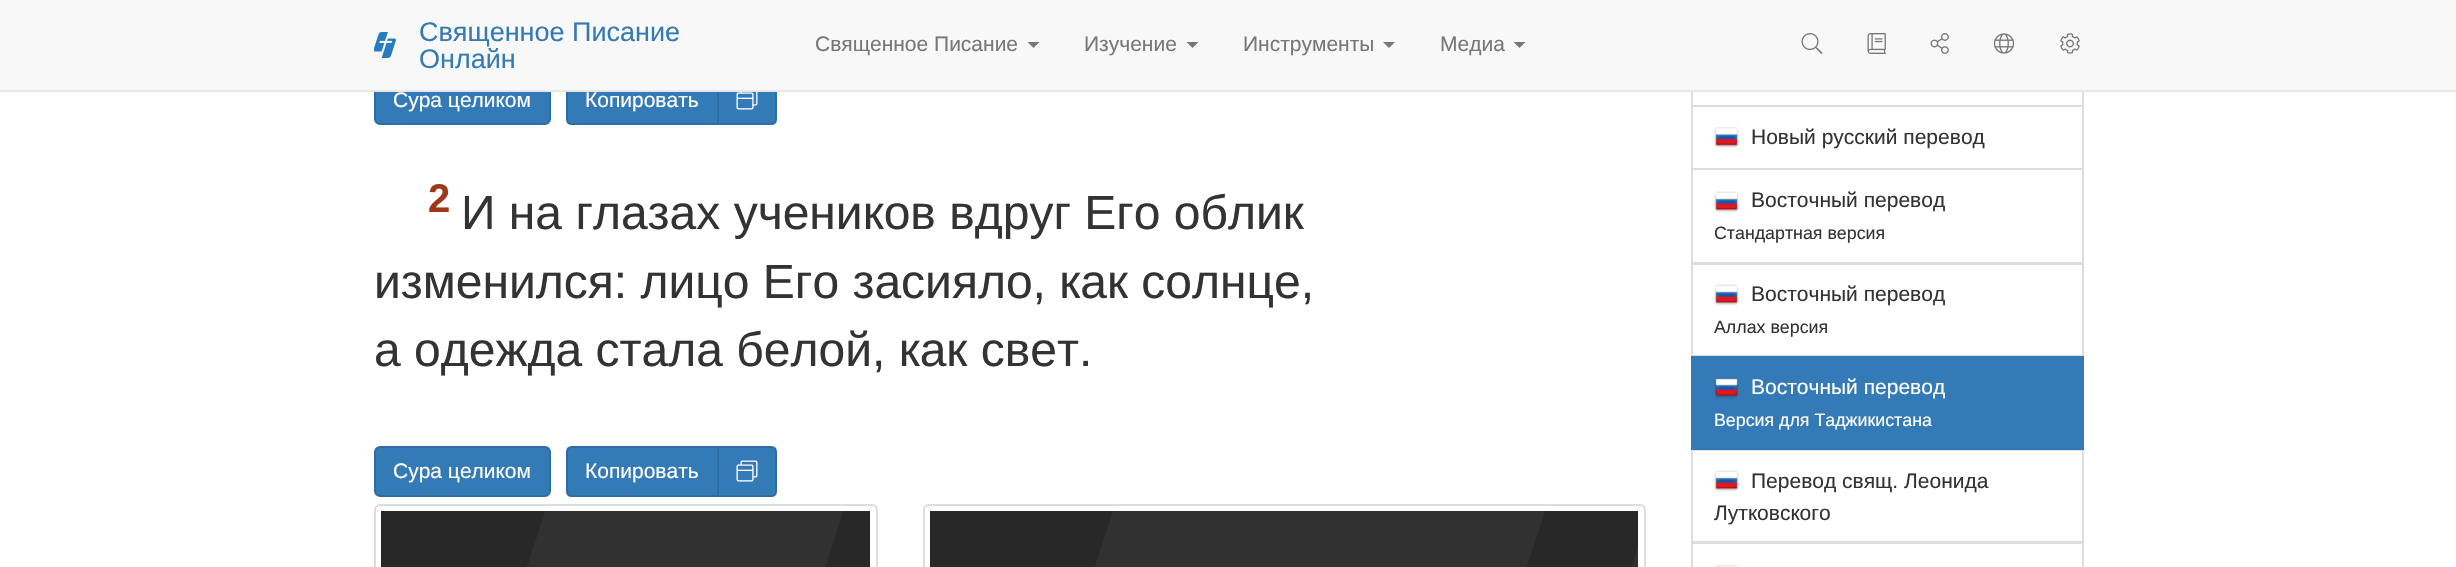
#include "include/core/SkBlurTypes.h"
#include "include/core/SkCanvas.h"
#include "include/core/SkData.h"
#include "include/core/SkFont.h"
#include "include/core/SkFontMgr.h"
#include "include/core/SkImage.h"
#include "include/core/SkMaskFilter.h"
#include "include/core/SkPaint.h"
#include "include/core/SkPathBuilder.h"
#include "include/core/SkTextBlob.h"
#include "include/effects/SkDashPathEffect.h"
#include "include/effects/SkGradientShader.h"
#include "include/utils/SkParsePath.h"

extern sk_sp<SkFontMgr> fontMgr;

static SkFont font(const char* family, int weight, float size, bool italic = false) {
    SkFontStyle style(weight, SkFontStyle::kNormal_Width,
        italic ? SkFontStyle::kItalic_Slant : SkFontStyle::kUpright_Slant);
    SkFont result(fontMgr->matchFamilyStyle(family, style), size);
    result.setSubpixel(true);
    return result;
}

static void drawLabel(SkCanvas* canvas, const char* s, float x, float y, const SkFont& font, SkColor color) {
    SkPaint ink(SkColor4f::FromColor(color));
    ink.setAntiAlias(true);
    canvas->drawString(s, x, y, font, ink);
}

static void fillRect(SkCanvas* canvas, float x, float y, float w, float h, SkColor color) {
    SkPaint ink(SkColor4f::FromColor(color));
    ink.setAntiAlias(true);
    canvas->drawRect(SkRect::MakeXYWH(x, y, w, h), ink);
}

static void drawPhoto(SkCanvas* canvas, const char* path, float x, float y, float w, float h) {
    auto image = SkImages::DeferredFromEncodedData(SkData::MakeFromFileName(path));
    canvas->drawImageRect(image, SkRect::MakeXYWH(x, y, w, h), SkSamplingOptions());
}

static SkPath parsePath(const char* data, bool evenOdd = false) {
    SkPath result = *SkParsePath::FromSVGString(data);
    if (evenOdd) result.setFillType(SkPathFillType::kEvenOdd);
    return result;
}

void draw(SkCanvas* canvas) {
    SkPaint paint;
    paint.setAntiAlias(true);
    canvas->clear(0xFFFFFFFF);
    paint.setColor(0xFF337AB7);
    canvas->drawRoundRect(SkRect::MakeXYWH(375, 75, 175, 49), 5, 5, paint);
    paint.setStroke(true);
    paint.setStrokeWidth(2);
    paint.setColor(0xFF2E6DA4);
    canvas->drawRoundRect(SkRect::MakeXYWH(375, 75, 175, 49), 5, 5, paint);
    paint.setStroke(false);
    paint.setColor(0xFF337AB7);
    canvas->drawPath(parsePath("M572 75H718V124H572C569 124 567 122 567 119V80C567 77 569 75 572 75Z"), paint);
    paint.setStroke(true);
    paint.setColor(0xFF2E6DA4);
    canvas->drawPath(parsePath("M572 75H718V124H572C569 124 567 122 567 119V80C567 77 569 75 572 75Z"), paint);
    paint.setStroke(false);
    paint.setColor(0xFF337AB7);
    canvas->drawPath(parsePath("M718 75H771C774 75 776 77 776 80V119C776 122 774 124 771 124H718Z"), paint);
    paint.setStroke(true);
    paint.setColor(0xFF2E6DA4);
    canvas->drawPath(parsePath("M718 75H771C774 75 776 77 776 80V119C776 122 774 124 771 124H718Z"), paint);
    paint.setColor(0xFFDDDDDD);
    canvas->drawRect(SkRect::MakeXYWH(1692, 13, 391, 93), paint);
    fillRect(canvas, 0, 0, 2456, 90, 0xFFF8F8F8);
    fillRect(canvas, 0, 90, 2456, 2, 0xFFE7E7E7);
    drawPhoto(canvas, "assets/img1.png", 374, 32, 22, 26);
    SkFont font1 = font("Liberation Sans", 400, 27);
    drawLabel(canvas, "Священное Писание", 419, 41, font1, 0xFF337AB7);
    drawLabel(canvas, "Онлайн", 419, 68, font1, 0xFF337AB7);
    SkFont font2 = font("Liberation Sans", 400, 21);
    drawLabel(canvas, "Священное Писание", 815, 51, font2, 0xFF777777);
    paint.setStroke(false);
    paint.setColor(0xFF777777);
    canvas->drawPath(parsePath("M1027.5 42H1039.5L1033.5 48Z"), paint);
    drawLabel(canvas, "Изучение", 1084, 51, font2, 0xFF777777);
    canvas->drawPath(parsePath("M1186.5 42H1198.5L1192.5 48Z"), paint);
    drawLabel(canvas, "Инструменты", 1243, 51, font2, 0xFF777777);
    canvas->drawPath(parsePath("M1383 42H1395L1389 48Z"), paint);
    drawLabel(canvas, "Медиа", 1440, 51, font2, 0xFF777777);
    canvas->drawPath(parsePath("M1513.5 42H1525.5L1519.5 48Z"), paint);
    drawPhoto(canvas, "assets/img2.png", 1801, 33, 22, 21);
    drawPhoto(canvas, "assets/img3.png", 1867, 33, 19, 21);
    drawPhoto(canvas, "assets/img4.png", 1930, 33, 19, 21);
    drawPhoto(canvas, "assets/img5.png", 1993, 33, 22, 21);
    drawPhoto(canvas, "assets/img6.png", 2060, 33, 20, 21);
    drawLabel(canvas, "Сура целиком", 393, 107, font2, 0xFFFFFFFF);
    drawLabel(canvas, "Копировать", 585, 107, font2, 0xFFFFFFFF);
    drawPhoto(canvas, "assets/img7.png", 736, 92, 22, 18);
    SkFont font3 = font("Liberation Sans", 700, 40);
    drawLabel(canvas, "2", 428, 212, font3, 0xFF9F3819);
    SkFont font4 = font("Liberation Sans", 400, 48);
    drawLabel(canvas, "И на глазах учеников вдруг Его облик", 461, 229, font4, 0xFF333333);
    drawLabel(canvas, "изменился: лицо Его засияло, как солнце,", 374, 298, font4, 0xFF333333);
    drawLabel(canvas, "а одежда стала белой, как свет.", 374, 366, font4, 0xFF333333);
    paint.setColor(0xFF337AB7);
    canvas->drawRoundRect(SkRect::MakeXYWH(375, 447, 175, 49), 5, 5, paint);
    paint.setStroke(true);
    paint.setColor(0xFF2E6DA4);
    canvas->drawRoundRect(SkRect::MakeXYWH(375, 447, 175, 49), 5, 5, paint);
    drawLabel(canvas, "Сура целиком", 393, 478, font2, 0xFFFFFFFF);
    paint.setStroke(false);
    paint.setColor(0xFF337AB7);
    canvas->drawPath(parsePath("M572 447H718V496H572C569 496 567 494 567 491V452C567 449 569 447 572 447Z"), paint);
    paint.setStroke(true);
    paint.setColor(0xFF2E6DA4);
    canvas->drawPath(parsePath("M572 447H718V496H572C569 496 567 494 567 491V452C567 449 569 447 572 447Z"), paint);
    drawLabel(canvas, "Копировать", 585, 478, font2, 0xFFFFFFFF);
    paint.setStroke(false);
    paint.setColor(0xFF337AB7);
    canvas->drawPath(parsePath("M718 447H771C774 447 776 449 776 452V491C776 494 774 496 771 496H718Z"), paint);
    paint.setStroke(true);
    paint.setColor(0xFF2E6DA4);
    canvas->drawPath(parsePath("M718 447H771C774 447 776 449 776 452V491C776 494 774 496 771 496H718Z"), paint);
    drawPhoto(canvas, "assets/img8.png", 736, 460, 22, 22);
    paint.setColor(0xFFDDDDDD);
    canvas->drawRoundRect(SkRect::MakeXYWH(375, 505, 502, 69), 5, 5, paint);
    drawPhoto(canvas, "assets/img9.png", 381, 511, 489, 56);
    canvas->drawRoundRect(SkRect::MakeXYWH(924, 505, 721, 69), 5, 5, paint);
    drawPhoto(canvas, "assets/img10.png", 930, 511, 708, 56);
    canvas->drawRect(SkRect::MakeXYWH(1692, 106, 391, 63), paint);
    drawPhoto(canvas, "assets/img11.png", 1714, 127, 25, 21);
    drawLabel(canvas, "Новый русский перевод", 1751, 144, font2, 0xFF333333);
    canvas->drawRect(SkRect::MakeXYWH(1692, 169, 391, 94), paint);
    drawPhoto(canvas, "assets/img12.png", 1714, 191, 25, 22);
    drawLabel(canvas, "Восточный перевод", 1751, 207, font2, 0xFF333333);
    SkFont font5 = font("Liberation Sans", 400, 17.8f);
    drawLabel(canvas, "Стандартная версия", 1714, 239, font5, 0xFF333333);
    canvas->drawRect(SkRect::MakeXYWH(1692, 264, 391, 92), paint);
    drawPhoto(canvas, "assets/img12.png", 1714, 284, 25, 22);
    drawLabel(canvas, "Восточный перевод", 1751, 301, font2, 0xFF333333);
    drawLabel(canvas, "Аллах версия", 1714, 333, font5, 0xFF333333);
    canvas->drawRect(SkRect::MakeXYWH(1692, 450, 391, 92), paint);
    fillRect(canvas, 1691, 356, 393, 94, 0xFF337AB7);
    drawPhoto(canvas, "assets/img13.png", 1714, 377, 25, 22);
    drawLabel(canvas, "Восточный перевод", 1751, 394, font2, 0xFFFFFFFF);
    drawLabel(canvas, "Версия для Таджикистана", 1714, 426, font5, 0xFFFFFFFF);
    drawPhoto(canvas, "assets/img12.png", 1714, 470, 25, 22);
    drawLabel(canvas, "Перевод свящ. Леонида", 1751, 488, font2, 0xFF333333);
    drawLabel(canvas, "Лутковского", 1714, 520, font2, 0xFF333333);
    canvas->drawRect(SkRect::MakeXYWH(1692, 543, 391, 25), paint);
    drawPhoto(canvas, "assets/img14.png", 1715, 565, 23, 2);
}
